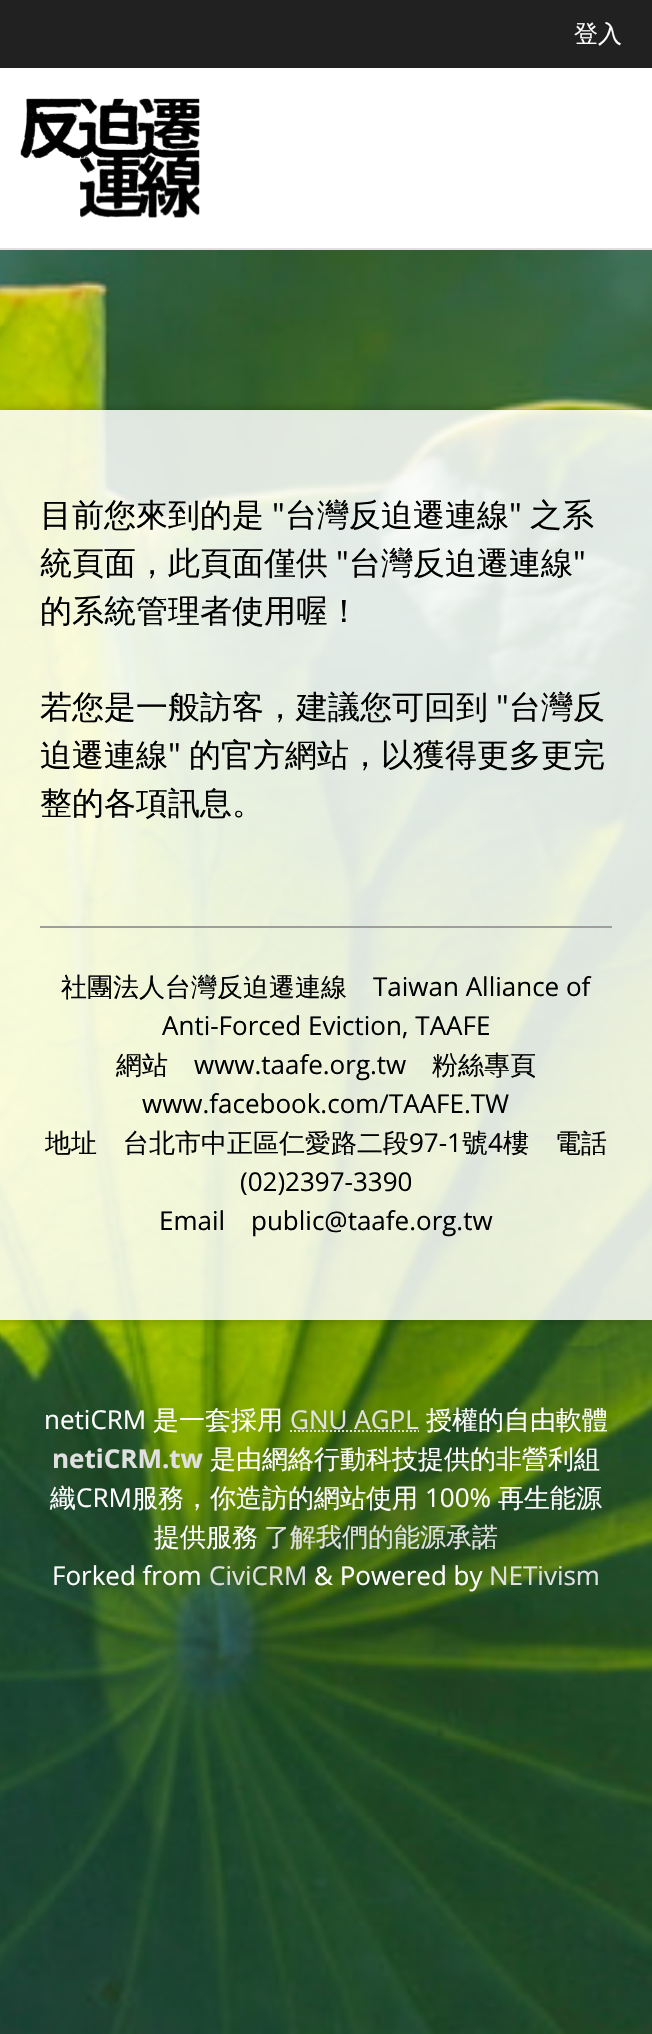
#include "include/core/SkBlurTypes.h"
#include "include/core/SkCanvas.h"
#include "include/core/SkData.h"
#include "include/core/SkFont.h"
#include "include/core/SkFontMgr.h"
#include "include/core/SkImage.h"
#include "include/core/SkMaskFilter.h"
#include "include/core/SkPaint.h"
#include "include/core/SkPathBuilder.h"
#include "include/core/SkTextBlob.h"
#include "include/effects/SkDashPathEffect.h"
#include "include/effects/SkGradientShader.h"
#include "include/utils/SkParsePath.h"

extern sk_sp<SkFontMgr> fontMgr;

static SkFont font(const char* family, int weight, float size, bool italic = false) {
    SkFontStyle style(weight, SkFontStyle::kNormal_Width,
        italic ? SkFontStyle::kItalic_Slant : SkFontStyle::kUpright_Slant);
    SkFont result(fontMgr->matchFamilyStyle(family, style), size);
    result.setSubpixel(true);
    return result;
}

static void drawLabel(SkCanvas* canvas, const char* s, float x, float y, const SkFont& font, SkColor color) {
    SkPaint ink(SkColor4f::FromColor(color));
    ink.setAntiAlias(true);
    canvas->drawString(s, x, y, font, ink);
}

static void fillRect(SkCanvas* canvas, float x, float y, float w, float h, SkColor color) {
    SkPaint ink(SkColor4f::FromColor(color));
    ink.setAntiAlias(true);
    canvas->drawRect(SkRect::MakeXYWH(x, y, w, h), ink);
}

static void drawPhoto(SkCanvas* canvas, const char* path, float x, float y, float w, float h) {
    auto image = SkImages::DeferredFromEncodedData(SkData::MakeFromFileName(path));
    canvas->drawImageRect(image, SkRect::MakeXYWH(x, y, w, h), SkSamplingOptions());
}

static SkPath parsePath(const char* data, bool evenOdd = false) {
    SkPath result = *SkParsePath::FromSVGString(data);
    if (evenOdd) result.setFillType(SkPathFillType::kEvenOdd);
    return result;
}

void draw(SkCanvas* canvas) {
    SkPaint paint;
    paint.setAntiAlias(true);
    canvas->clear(0xFFFFFFFF);
    drawPhoto(canvas, "assets/img1.png", 0, 250, 652, 1784);
    fillRect(canvas, 0, 248, 652, 2, 0xFFE0E0E0);
    fillRect(canvas, 0, 0, 652, 68, 0xFF212121);
    SkFont font1 = font("WenQuanYi Zen Hei", 500, 24);
    drawLabel(canvas, "登入", 574, 42, font1, 0xFFFFFFFF);
    drawPhoto(canvas, "assets/img2.png", 20, 98, 180, 120);
    canvas->save();
    canvas->clipPath(parsePath("M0 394H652V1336H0ZM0 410H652V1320H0Z", true), true);
    paint.setColor(0x4D000000);
    paint.setMaskFilter(SkMaskFilter::MakeBlur(kNormal_SkBlurStyle, 5));
    canvas->drawRect(SkRect::MakeXYWH(0, 410, 652, 910), paint);
    paint.setMaskFilter(nullptr);
    canvas->restore();
    fillRect(canvas, 0, 410, 652, 910, 0xD9FFFFFF);
    SkFont font2 = font("WenQuanYi Zen Hei", 500, 32);
    drawLabel(canvas, "目前您來到的是", 40, 526, font2, 0xFF000000);
    SkFont font3 = font("Open Sans", 400, 32);
    drawLabel(canvas, "\"", 272, 526, font3, 0xFF000000);
    drawLabel(canvas, "台灣反迫遷連線", 285, 526, font2, 0xFF000000);
    drawLabel(canvas, "\"", 509, 526, font3, 0xFF000000);
    drawLabel(canvas, "之系", 530, 526, font2, 0xFF000000);
    drawLabel(canvas, "統頁面，此頁面僅供", 40, 574, font2, 0xFF000000);
    drawLabel(canvas, "\"", 336, 574, font3, 0xFF000000);
    drawLabel(canvas, "台灣反迫遷連線", 349, 574, font2, 0xFF000000);
    drawLabel(canvas, "\"", 573, 574, font3, 0xFF000000);
    drawLabel(canvas, "的系統管理者使用喔！", 40, 622, font2, 0xFF000000);
    drawLabel(canvas, "若您是一般訪客，建議您可回到", 40, 718, font2, 0xFF000000);
    drawLabel(canvas, "\"", 496, 718, font3, 0xFF000000);
    drawLabel(canvas, "台灣反", 509, 718, font2, 0xFF000000);
    drawLabel(canvas, "迫遷連線", 40, 766, font2, 0xFF000000);
    drawLabel(canvas, "\"", 168, 766, font3, 0xFF000000);
    drawLabel(canvas, "的官方網站，以獲得更多更完", 189, 766, font2, 0xFF000000);
    drawLabel(canvas, "整的各項訊息。", 40, 814, font2, 0xFF000000);
    fillRect(canvas, 40, 926, 572, 2, 0xFF9E9E9E);
    SkFont font4 = font("WenQuanYi Zen Hei", 500, 26);
    drawLabel(canvas, "社團法人台灣反迫遷連線", 61, 996, font4, 0xFF000000);
    SkFont font5 = font("Open Sans", 400, 26);
    drawLabel(canvas, "Taiwan Alliance of", 373, 996, font5, 0xFF000000);
    drawLabel(canvas, "Anti-Forced Eviction, TAAFE", 162, 1035, font5, 0xFF000000);
    drawLabel(canvas, "網站", 116, 1074, font4, 0xFF000000);
    drawLabel(canvas, "www.taafe.org.tw", 194, 1074, font5, 0xFF000000);
    drawLabel(canvas, "粉絲專頁", 432, 1074, font4, 0xFF000000);
    drawLabel(canvas, "www.facebook.com/TAAFE.TW", 142, 1113, font5, 0xFF000000);
    drawLabel(canvas, "地址　台北市中正區仁愛路二段", 45, 1152, font4, 0xFF000000);
    drawLabel(canvas, "97-1", 409, 1152, font5, 0xFF000000);
    drawLabel(canvas, "號", 462, 1152, font4, 0xFF000000);
    drawLabel(canvas, "4", 488, 1152, font5, 0xFF000000);
    drawLabel(canvas, "樓　電話", 503, 1152, font4, 0xFF000000);
    drawLabel(canvas, "(02)2397-3390", 240, 1191, font5, 0xFF000000);
    drawLabel(canvas, "Email", 159, 1230, font5, 0xFF000000);
    drawLabel(canvas, "public@taafe.org.tw", 251, 1230, font5, 0xFF000000);
    drawLabel(canvas, "netiCRM", 44, 1429, font5, 0xFFFFFFFF);
    drawLabel(canvas, "是一套採用", 153, 1429, font4, 0xFFFFFFFF);
    drawLabel(canvas, "GNU AGPL", 290, 1429, font5, 0xFFE0E0E0);
    paint.setStroke(true);
    paint.setStrokeWidth(2);
    paint.setColor(0xFFE0E0E0);
    paint.setPathEffect(SkDashPathEffect::Make({{2, 2}}, 0));
    canvas->drawPath(parsePath("M290 1431H419"), paint);
    paint.setPathEffect(nullptr);
    drawLabel(canvas, "授權的自由軟體", 426, 1429, font4, 0xFFFFFFFF);
    SkFont font6 = font("Open Sans", 700, 26);
    drawLabel(canvas, "netiCRM.tw", 52, 1468, font6, 0xFFE0E0E0);
    drawLabel(canvas, "是由網絡行動科技提供的非營利組", 210, 1468, font4, 0xFFFFFFFF);
    drawLabel(canvas, "織", 50, 1507, font4, 0xFFFFFFFF);
    drawLabel(canvas, "CRM", 76, 1507, font5, 0xFFFFFFFF);
    drawLabel(canvas, "服務，你造訪的網站使用", 132, 1507, font4, 0xFFFFFFFF);
    drawLabel(canvas, "100%", 425, 1507, font5, 0xFFFFFFFF);
    drawLabel(canvas, "再生能源", 498, 1507, font4, 0xFFFFFFFF);
    drawLabel(canvas, "提供服務", 154, 1546, font4, 0xFFFFFFFF);
    drawLabel(canvas, "了解我們的能源承諾", 264, 1546, font4, 0xFFE0E0E0);
    drawLabel(canvas, "Forked from", 52, 1585, font5, 0xFFFFFFFF);
    drawLabel(canvas, "CiviCRM", 209, 1585, font5, 0xFFE0E0E0);
    drawLabel(canvas, "& Powered by", 314, 1585, font5, 0xFFFFFFFF);
    drawLabel(canvas, "NETivism", 489, 1585, font5, 0xFFE0E0E0);
}
